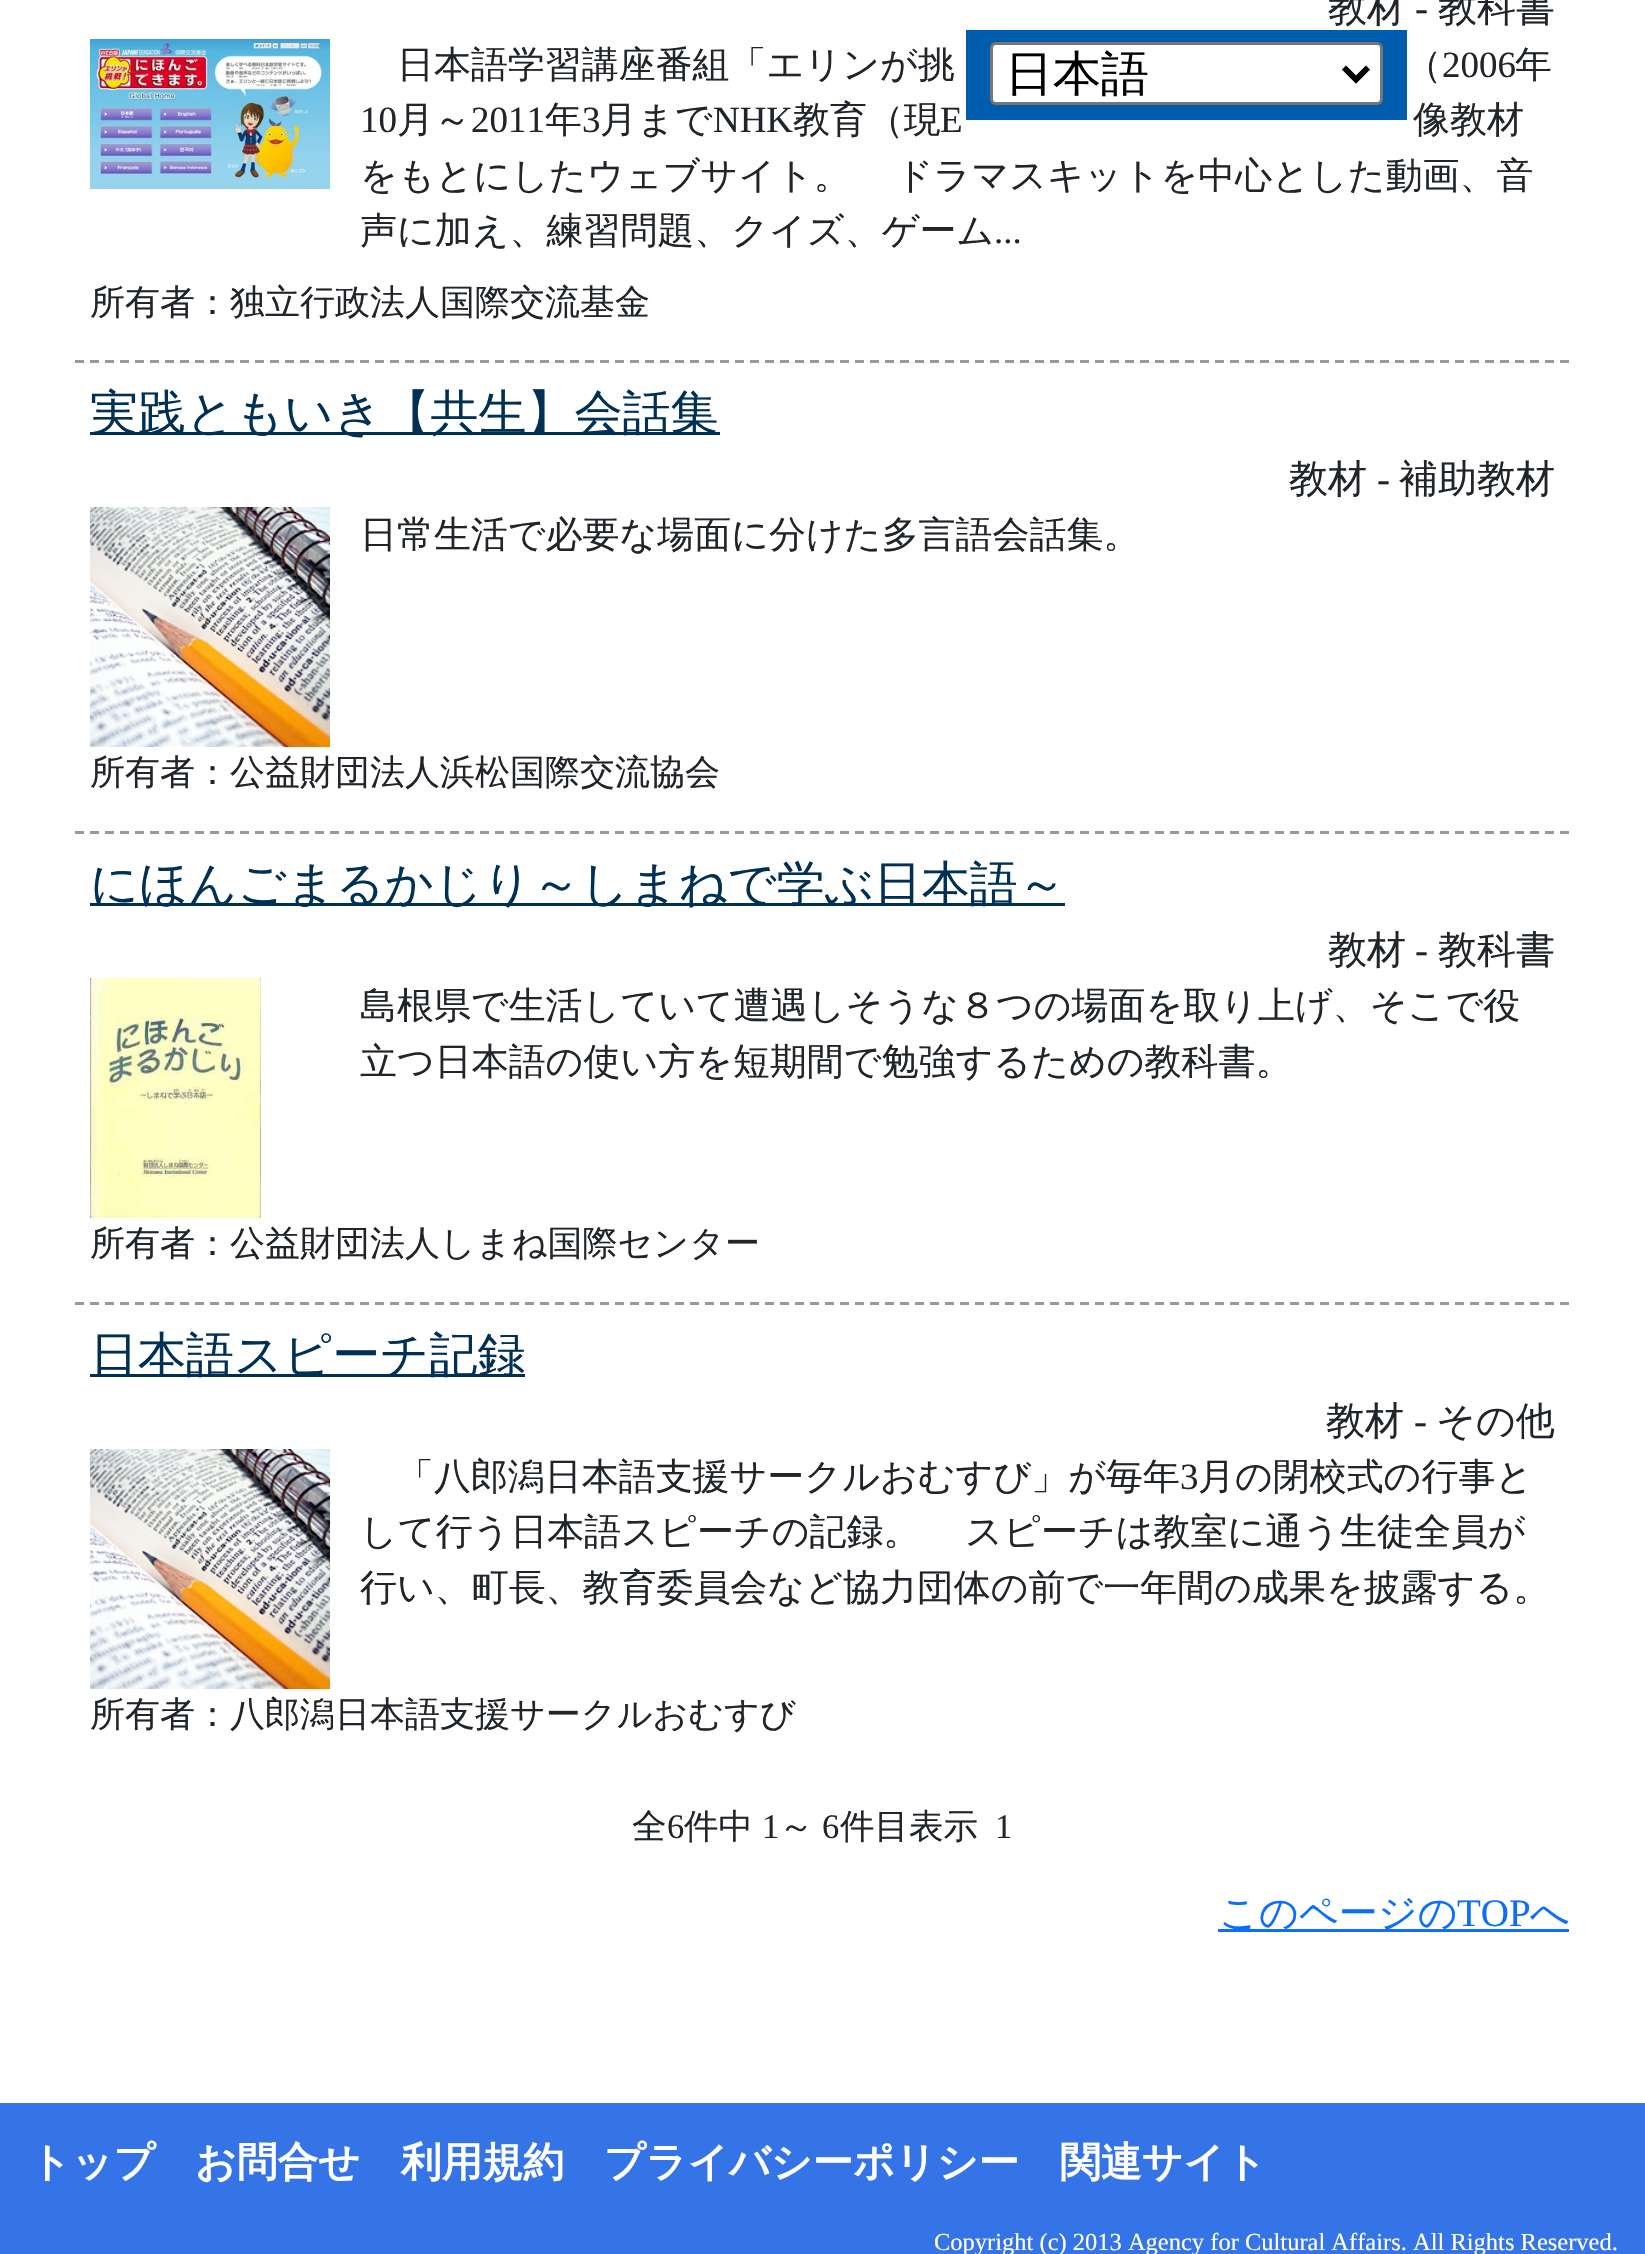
#include "include/core/SkBlurTypes.h"
#include "include/core/SkCanvas.h"
#include "include/core/SkData.h"
#include "include/core/SkFont.h"
#include "include/core/SkFontMgr.h"
#include "include/core/SkImage.h"
#include "include/core/SkMaskFilter.h"
#include "include/core/SkPaint.h"
#include "include/core/SkPathBuilder.h"
#include "include/core/SkTextBlob.h"
#include "include/effects/SkDashPathEffect.h"
#include "include/effects/SkGradientShader.h"
#include "include/utils/SkParsePath.h"

extern sk_sp<SkFontMgr> fontMgr;

static SkFont font(const char* family, int weight, float size, bool italic = false) {
    SkFontStyle style(weight, SkFontStyle::kNormal_Width,
        italic ? SkFontStyle::kItalic_Slant : SkFontStyle::kUpright_Slant);
    SkFont result(fontMgr->matchFamilyStyle(family, style), size);
    result.setSubpixel(true);
    return result;
}

static void drawLabel(SkCanvas* canvas, const char* s, float x, float y, const SkFont& font, SkColor color) {
    SkPaint ink(SkColor4f::FromColor(color));
    ink.setAntiAlias(true);
    canvas->drawString(s, x, y, font, ink);
}

static void drawTracked(SkCanvas* canvas, const char* s, float x, float y, const SkFont& font, const SkPaint& ink, float letter, float word) {
    std::vector<SkGlyphID> glyphs(font.countText(s, strlen(s), SkTextEncoding::kUTF8));
    std::vector<float> xs(glyphs.size());
    font.textToGlyphs(s, strlen(s), SkTextEncoding::kUTF8, glyphs);
    font.getXPos(glyphs, xs, x);
    float extra = 0;
    for (size_t i = 0; i < glyphs.size(); i++) {
        xs[i] += extra;
        extra += letter + word * (glyphs[i] == font.unicharToGlyph(' '));
    }
    canvas->drawTextBlob(SkTextBlob::MakeFromPosHGlyphs(glyphs, xs, y, font), 0, 0, ink);
}

static void fillRect(SkCanvas* canvas, float x, float y, float w, float h, SkColor color) {
    SkPaint ink(SkColor4f::FromColor(color));
    ink.setAntiAlias(true);
    canvas->drawRect(SkRect::MakeXYWH(x, y, w, h), ink);
}

static void drawPhoto(SkCanvas* canvas, const char* path, float x, float y, float w, float h) {
    auto image = SkImages::DeferredFromEncodedData(SkData::MakeFromFileName(path));
    canvas->drawImageRect(image, SkRect::MakeXYWH(x, y, w, h), SkSamplingOptions());
}

static SkPath parsePath(const char* data, bool evenOdd = false) {
    SkPath result = *SkParsePath::FromSVGString(data);
    if (evenOdd) result.setFillType(SkPathFillType::kEvenOdd);
    return result;
}

void draw(SkCanvas* canvas) {
    SkPaint paint;
    paint.setAntiAlias(true);
    canvas->clear(0xFFFFFFFF);
    SkFont font1 = font("WenQuanYi Zen Hei", 500, 39);
    drawLabel(canvas, "教材", 1328, 21, font1, 0xFF212529);
    SkFont font2 = font("Liberation Serif", 400, 39);
    drawLabel(canvas, "-", 1415, 21, font2, 0xFF212529);
    drawLabel(canvas, "教科書", 1438, 21, font1, 0xFF212529);
    drawPhoto(canvas, "assets/img1.png", 90, 39, 240, 150);
    SkFont font3 = font("WenQuanYi Zen Hei", 500, 36.95f);
    drawLabel(canvas, "日本語学習講座番組「エリンが挑", 397, 77, font3, 0xFF212529);
    drawLabel(canvas, "（", 1405, 77, font3, 0xFF212529);
    SkFont font4 = font("Liberation Serif", 400, 36.95f);
    drawLabel(canvas, "2006", 1442, 77, font4, 0xFF212529);
    drawLabel(canvas, "年", 1515, 77, font3, 0xFF212529);
    drawLabel(canvas, "10", 360, 132, font4, 0xFF212529);
    drawLabel(canvas, "月～", 397, 132, font3, 0xFF212529);
    drawLabel(canvas, "2011", 471, 132, font4, 0xFF212529);
    drawLabel(canvas, "年", 545, 132, font3, 0xFF212529);
    drawLabel(canvas, "3", 582, 132, font4, 0xFF212529);
    drawLabel(canvas, "月まで", 600, 132, font3, 0xFF212529);
    drawLabel(canvas, "NHK", 713, 132, font4, 0xFF212529);
    drawLabel(canvas, "教育（現", 793, 132, font3, 0xFF212529);
    drawLabel(canvas, "E", 940, 132, font4, 0xFF212529);
    drawLabel(canvas, "像教材", 1413, 132, font3, 0xFF212529);
    paint.setColor(0xFF212529);
    drawTracked(canvas, "をもとにしたウェブサイト。 　ドラマスキットを中心とした動画、音", 360, 188, font3, paint, 0, -3);
    drawLabel(canvas, "声に加え、練習問題、クイズ、ゲーム", 360, 243, font3, 0xFF212529);
    drawLabel(canvas, "...", 994, 243, font4, 0xFF212529);
    SkFont font5 = font("WenQuanYi Zen Hei", 500, 35);
    drawLabel(canvas, "所有者：独立行政法人国際交流基金", 90, 314, font5, 0xFF212529);
    paint.setStroke(true);
    paint.setStrokeWidth(3);
    paint.setColor(0xFF999999);
    paint.setPathEffect(SkDashPathEffect::Make({{9, 6}}, 0));
    canvas->drawPath(parsePath("M75 361.5H1569"), paint);
    paint.setPathEffect(nullptr);
    fillRect(canvas, 90, 432, 630, 3, 0xFF003155);
    SkFont font6 = font("WenQuanYi Zen Hei", 500, 48);
    drawLabel(canvas, "実践ともいき【共生】会話集", 90, 429, font6, 0xFF003155);
    drawLabel(canvas, "教材", 1289, 492, font1, 0xFF212529);
    drawLabel(canvas, "-", 1377, 492, font2, 0xFF212529);
    drawLabel(canvas, "補助教材", 1399, 492, font1, 0xFF212529);
    drawPhoto(canvas, "assets/img2.png", 90, 507, 240, 240);
    drawLabel(canvas, "日常生活で必要な場面に分けた多言語会話集。", 360, 547, font3, 0xFF212529);
    drawLabel(canvas, "所有者：公益財団法人浜松国際交流協会", 90, 784, font5, 0xFF212529);
    paint.setPathEffect(SkDashPathEffect::Make({{9, 6}}, 0));
    canvas->drawPath(parsePath("M75 832.5H1569"), paint);
    paint.setPathEffect(nullptr);
    fillRect(canvas, 90, 903, 975, 3, 0xFF003155);
    drawLabel(canvas, "にほんごまるかじり～しまねで学ぶ日本語～", 90, 900, font6, 0xFF003155);
    drawLabel(canvas, "教材", 1328, 963, font1, 0xFF212529);
    drawLabel(canvas, "-", 1415, 963, font2, 0xFF212529);
    drawLabel(canvas, "教科書", 1438, 963, font1, 0xFF212529);
    drawPhoto(canvas, "assets/img3.png", 90, 978, 171, 240);
    drawLabel(canvas, "島根県で生活していて遭遇しそうな８つの場面を取り上げ、そこで役", 360, 1018, font3, 0xFF212529);
    drawLabel(canvas, "立つ日本語の使い方を短期間で勉強するための教科書。", 360, 1074, font3, 0xFF212529);
    drawLabel(canvas, "所有者：公益財団法人しまね国際センター", 90, 1255, font5, 0xFF212529);
    paint.setPathEffect(SkDashPathEffect::Make({{9, 6}}, 0));
    canvas->drawPath(parsePath("M75 1303.5H1569"), paint);
    paint.setPathEffect(nullptr);
    fillRect(canvas, 90, 1374, 435, 3, 0xFF003155);
    drawLabel(canvas, "日本語スピーチ記録", 90, 1371, font6, 0xFF003155);
    drawLabel(canvas, "教材", 1326, 1434, font1, 0xFF212529);
    drawLabel(canvas, "-", 1414, 1434, font2, 0xFF212529);
    drawLabel(canvas, "その他", 1436, 1434, font1, 0xFF212529);
    drawPhoto(canvas, "assets/img2.png", 90, 1449, 240, 240);
    drawLabel(canvas, "「八郎潟日本語支援サークルおむすび」が毎年", 397, 1489, font3, 0xFF212529);
    drawLabel(canvas, "3", 1180, 1489, font4, 0xFF212529);
    drawLabel(canvas, "月の閉校式の行事と", 1198, 1489, font3, 0xFF212529);
    paint.setStroke(false);
    paint.setColor(0xFF212529);
    drawTracked(canvas, "して行う日本語スピーチの記録。 　スピーチは教室に通う生徒全員が", 360, 1544, font3, paint, 0, -3);
    drawLabel(canvas, "行い、町長、教育委員会など協力団体の前で一年間の成果を披露する。", 360, 1600, font3, 0xFF212529);
    drawLabel(canvas, "所有者：八郎潟日本語支援サークルおむすび", 90, 1726, font5, 0xFF212529);
    SkFont font7 = font("WenQuanYi Zen Hei", 500, 34.5f);
    drawLabel(canvas, "全", 632, 1838, font7, 0xFF212529);
    SkFont font8 = font("Liberation Serif", 400, 34.5f);
    drawLabel(canvas, "6", 667, 1838, font8, 0xFF212529);
    drawLabel(canvas, "件中", 684, 1838, font7, 0xFF212529);
    drawLabel(canvas, "1", 762, 1838, font8, 0xFF212529);
    drawLabel(canvas, "～", 779, 1838, font7, 0xFF212529);
    drawLabel(canvas, "6", 822, 1838, font8, 0xFF212529);
    drawLabel(canvas, "件目表示", 840, 1838, font7, 0xFF212529);
    drawLabel(canvas, "1", 995, 1838, font8, 0xFF212529);
    fillRect(canvas, 1218, 1929, 351, 3, 0xFF0D6EFD);
    drawLabel(canvas, "このページの", 1219, 1926, font1, 0xFF0D6EFD);
    drawLabel(canvas, "TOP", 1457, 1926, font2, 0xFF0D6EFD);
    drawLabel(canvas, "へ", 1530, 1926, font1, 0xFF0D6EFD);
    fillRect(canvas, 0, 2103, 1645, 151, 0xFF3574E6);
    SkFont font9 = font("WenQuanYi Zen Hei", 700, 40.75f);
    drawLabel(canvas, "トップ", 30, 2176, font9, 0xFFFFFFFF);
    drawLabel(canvas, "お問合せ", 195, 2176, font9, 0xFFFFFFFF);
    drawLabel(canvas, "利用規約", 401, 2176, font9, 0xFFFFFFFF);
    drawLabel(canvas, "プライバシーポリシー", 604, 2176, font9, 0xFFFFFFFF);
    drawLabel(canvas, "関連サイト", 1060, 2176, font9, 0xFFFFFFFF);
    SkFont font10 = font("Liberation Serif", 400, 24.5f);
    drawLabel(canvas, "Copyright (c) 2013 Agency for Cultural Affairs. All Rights Reserved.", 934, 2250, font10, 0xFFFFFFFF);
    fillRect(canvas, 966, 30, 441, 90, 0xFF005CAD);
    paint.setColor(0xFFFFFFFF);
    canvas->drawRoundRect(SkRect::MakeXYWH(991.5f, 43.5f, 390, 60), 4.5f, 4.5f, paint);
    paint.setStroke(true);
    paint.setColor(0xFF767676);
    canvas->drawRoundRect(SkRect::MakeXYWH(991.5f, 43.5f, 390, 60), 4.5f, 4.5f, paint);
    paint.setStrokeWidth(6);
    paint.setColor(0xFF000000);
    canvas->drawPath(parsePath("M1344 67.5L1356 79.5L1368 67.5"), paint);
    drawLabel(canvas, "日本語", 1005, 90, font6, 0xFF000000);
}
